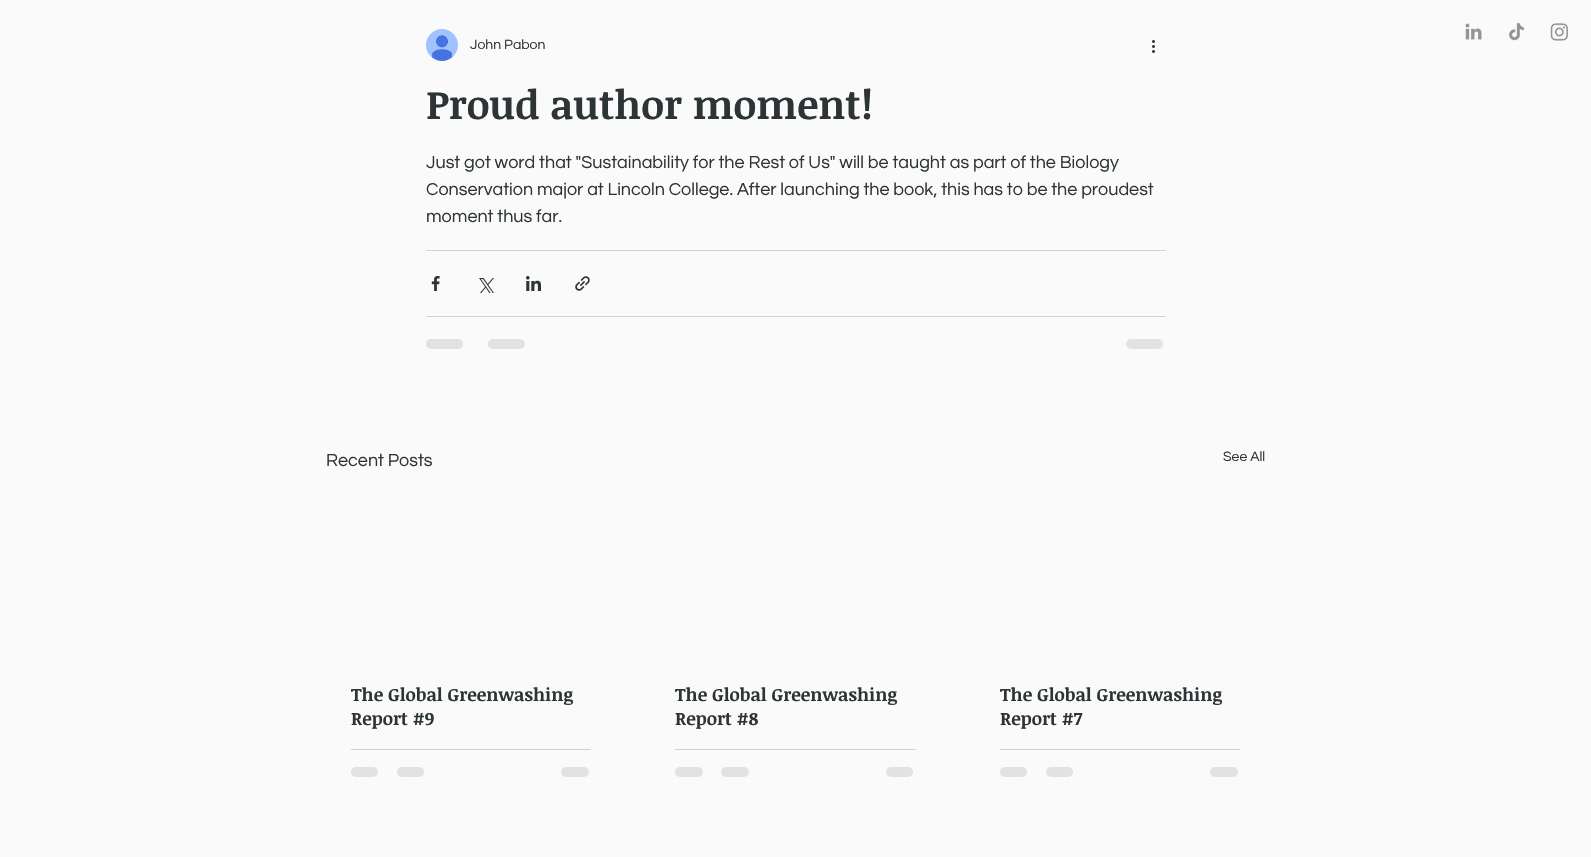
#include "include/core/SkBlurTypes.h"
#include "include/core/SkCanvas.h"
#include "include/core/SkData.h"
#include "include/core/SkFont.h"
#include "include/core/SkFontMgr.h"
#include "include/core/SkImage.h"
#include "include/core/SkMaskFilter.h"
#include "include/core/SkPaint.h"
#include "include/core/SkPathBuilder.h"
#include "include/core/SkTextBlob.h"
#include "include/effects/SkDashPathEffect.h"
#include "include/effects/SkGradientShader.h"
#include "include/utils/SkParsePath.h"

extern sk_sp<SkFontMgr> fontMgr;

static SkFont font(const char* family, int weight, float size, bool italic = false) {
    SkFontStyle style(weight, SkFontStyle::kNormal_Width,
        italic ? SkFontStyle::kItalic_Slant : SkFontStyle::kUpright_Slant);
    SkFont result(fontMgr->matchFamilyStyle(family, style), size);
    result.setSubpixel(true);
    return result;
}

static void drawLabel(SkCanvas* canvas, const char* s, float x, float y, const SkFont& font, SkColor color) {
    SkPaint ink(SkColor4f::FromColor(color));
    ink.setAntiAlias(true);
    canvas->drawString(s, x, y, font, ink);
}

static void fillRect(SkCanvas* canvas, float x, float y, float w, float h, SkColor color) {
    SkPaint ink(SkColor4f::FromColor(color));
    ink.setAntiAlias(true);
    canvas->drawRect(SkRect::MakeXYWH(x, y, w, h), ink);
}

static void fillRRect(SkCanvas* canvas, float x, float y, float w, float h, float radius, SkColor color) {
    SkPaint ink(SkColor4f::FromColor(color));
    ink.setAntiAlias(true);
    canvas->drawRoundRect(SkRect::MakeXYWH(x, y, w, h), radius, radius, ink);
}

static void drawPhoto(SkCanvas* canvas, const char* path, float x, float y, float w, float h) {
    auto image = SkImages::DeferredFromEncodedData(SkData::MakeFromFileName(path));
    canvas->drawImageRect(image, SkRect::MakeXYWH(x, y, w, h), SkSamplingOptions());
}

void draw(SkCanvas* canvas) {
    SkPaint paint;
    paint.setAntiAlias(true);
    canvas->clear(0xFFFAFAFA);
    drawPhoto(canvas, "assets/img1.png", 1465, 23, 17, 17);
    drawPhoto(canvas, "assets/img2.png", 1509, 23, 15, 18);
    drawPhoto(canvas, "assets/img3.png", 1550, 23, 19, 18);
    drawPhoto(canvas, "assets/img4.png", 426, 29, 32, 32);
    SkFont font1 = font("Questrial", 400, 14);
    drawLabel(canvas, "John Pabon", 470, 49, font1, 0xFF2D3436);
    drawPhoto(canvas, "assets/img5.png", 1152, 40, 3, 13);
    SkFont font2 = font("Noticia Text", 700, 40);
    drawLabel(canvas, "Proud author moment!", 426, 119, font2, 0xFF2D3436);
    SkFont font3 = font("Questrial", 400, 18);
    drawLabel(canvas, "Just got word that \"Sustainability for the Rest of Us\" will be taught as part of the Biology", 426, 168, font3, 0xFF2D3436);
    drawLabel(canvas, "Conservation major at Lincoln College. After launching the book, this has to be the proudest", 426, 195, font3, 0xFF2D3436);
    drawLabel(canvas, "moment thus far.", 426, 222, font3, 0xFF2D3436);
    fillRect(canvas, 426, 250, 740, 1, 0xFFD1D2D3);
    drawPhoto(canvas, "assets/img6.png", 431, 276, 9, 15);
    drawPhoto(canvas, "assets/img7.png", 479, 278, 15, 15);
    drawPhoto(canvas, "assets/img8.png", 526, 276, 15, 15);
    drawPhoto(canvas, "assets/img9.png", 575, 276, 15, 15);
    fillRect(canvas, 426, 316, 740, 1, 0xFFD1D2D3);
    fillRRect(canvas, 426, 339, 37, 10, 5, 0xFFE1E2E2);
    fillRRect(canvas, 488, 339, 37, 10, 5, 0xFFE1E2E2);
    fillRRect(canvas, 1126, 339, 37, 10, 5, 0xFFE1E2E2);
    drawLabel(canvas, "Recent Posts", 326, 466, font3, 0xFF2D3436);
    drawLabel(canvas, "See All", 1223, 461, font1, 0xFF2D3436);
    canvas->save();
    canvas->clipRect(SkRect::MakeXYWH(351, 682, 240, 48));
    SkFont font4 = font("Noticia Text", 700, 18);
    drawLabel(canvas, "The Global Greenwashing", 351, 701, font4, 0xFF2D3436);
    canvas->restore();
    drawLabel(canvas, "Report #9", 351, 725, font4, 0xFF2D3436);
    fillRect(canvas, 351, 749, 240, 1, 0xFFD1D2D3);
    fillRRect(canvas, 351, 767, 27, 10, 5, 0xFFE1E2E2);
    fillRRect(canvas, 397, 767, 27, 10, 5, 0xFFE1E2E2);
    fillRRect(canvas, 561, 767, 28, 10, 5, 0xFFE1E2E2);
    drawLabel(canvas, "The Global Greenwashing", 675, 701, font4, 0xFF2D3436);
    drawLabel(canvas, "Report #8", 675, 725, font4, 0xFF2D3436);
    fillRect(canvas, 675, 749, 241, 1, 0xFFD1D2D3);
    fillRRect(canvas, 675, 767, 28, 10, 5, 0xFFE1E2E2);
    fillRRect(canvas, 721, 767, 28, 10, 5, 0xFFE1E2E2);
    fillRRect(canvas, 886, 767, 27, 10, 5, 0xFFE1E2E2);
    drawLabel(canvas, "The Global Greenwashing", 1000, 701, font4, 0xFF2D3436);
    drawLabel(canvas, "Report #7", 1000, 725, font4, 0xFF2D3436);
    fillRect(canvas, 1000, 749, 240, 1, 0xFFD1D2D3);
    fillRRect(canvas, 1000, 767, 27, 10, 5, 0xFFE1E2E2);
    fillRRect(canvas, 1046, 767, 27, 10, 5, 0xFFE1E2E2);
    fillRRect(canvas, 1210, 767, 28, 10, 5, 0xFFE1E2E2);
}
